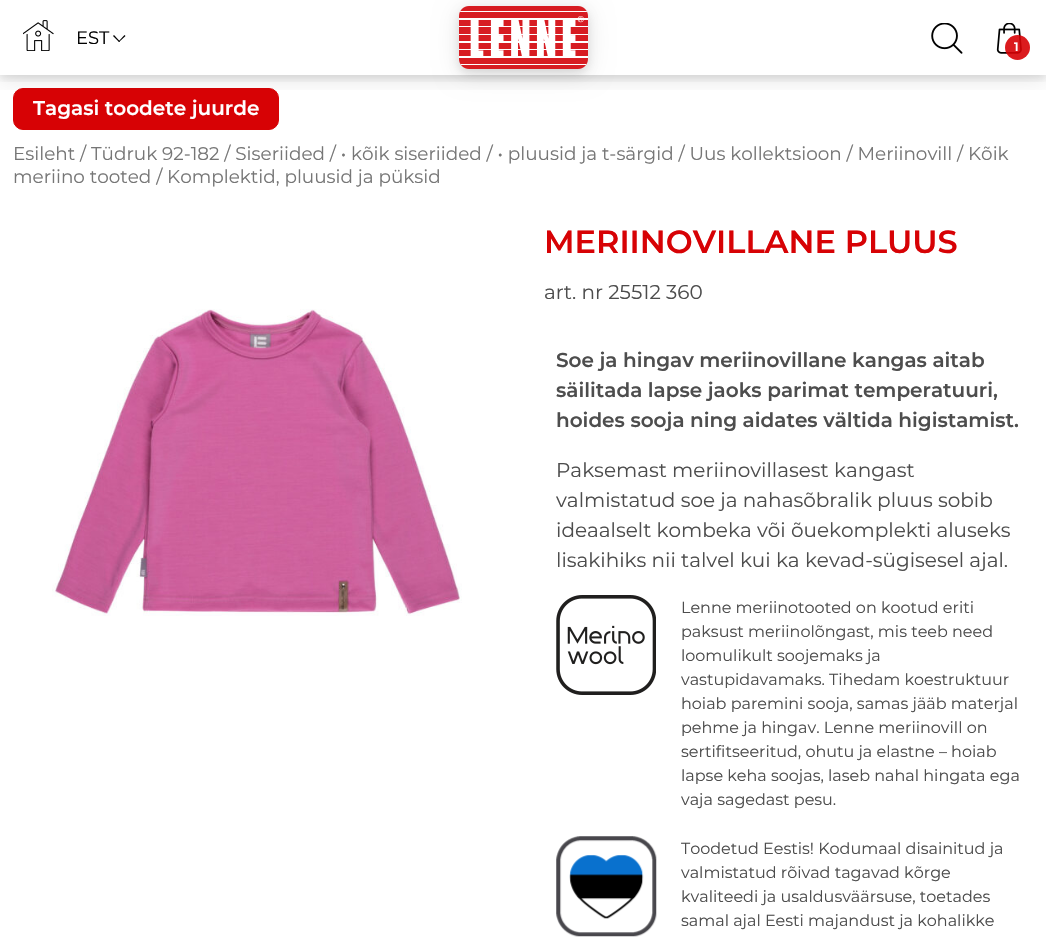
#include "include/core/SkBlurTypes.h"
#include "include/core/SkCanvas.h"
#include "include/core/SkData.h"
#include "include/core/SkFont.h"
#include "include/core/SkFontMgr.h"
#include "include/core/SkImage.h"
#include "include/core/SkMaskFilter.h"
#include "include/core/SkPaint.h"
#include "include/core/SkPathBuilder.h"
#include "include/core/SkTextBlob.h"
#include "include/effects/SkDashPathEffect.h"
#include "include/effects/SkGradientShader.h"
#include "include/utils/SkParsePath.h"

extern sk_sp<SkFontMgr> fontMgr;

static SkFont font(const char* family, int weight, float size, bool italic = false) {
    SkFontStyle style(weight, SkFontStyle::kNormal_Width,
        italic ? SkFontStyle::kItalic_Slant : SkFontStyle::kUpright_Slant);
    SkFont result(fontMgr->matchFamilyStyle(family, style), size);
    result.setSubpixel(true);
    return result;
}

static void drawLabel(SkCanvas* canvas, const char* s, float x, float y, const SkFont& font, SkColor color) {
    SkPaint ink(SkColor4f::FromColor(color));
    ink.setAntiAlias(true);
    canvas->drawString(s, x, y, font, ink);
}

static void drawPhoto(SkCanvas* canvas, const char* path, float x, float y, float w, float h) {
    auto image = SkImages::DeferredFromEncodedData(SkData::MakeFromFileName(path));
    canvas->drawImageRect(image, SkRect::MakeXYWH(x, y, w, h), SkSamplingOptions());
}

static SkPath parsePath(const char* data, bool evenOdd = false) {
    SkPath result = *SkParsePath::FromSVGString(data);
    if (evenOdd) result.setFillType(SkPathFillType::kEvenOdd);
    return result;
}

void draw(SkCanvas* canvas) {
    SkPaint paint;
    paint.setAntiAlias(true);
    canvas->clear(0xFFFFFFFF);
    paint.setColor(0xFFD70205);
    canvas->drawRoundRect(SkRect::MakeXYWH(13.5f, 88.5f, 265, 41), 9.5f, 9.5f, paint);
    paint.setStroke(true);
    paint.setStrokeWidth(1);
    canvas->drawRoundRect(SkRect::MakeXYWH(13.5f, 88.5f, 265, 41), 9.5f, 9.5f, paint);
    canvas->save();
    canvas->clipRect(SkRect::MakeXYWH(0, 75, 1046, 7));
    paint.setStroke(false);
    paint.setColor(0x1A000000);
    paint.setMaskFilter(SkMaskFilter::MakeBlur(kNormal_SkBlurStyle, 4));
    canvas->drawRect(SkRect::MakeXYWH(0, 4, 1046, 75), paint);
    paint.setMaskFilter(nullptr);
    canvas->restore();
    canvas->save();
    canvas->clipRect(SkRect::MakeXYWH(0, 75, 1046, 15));
    paint.setMaskFilter(SkMaskFilter::MakeBlur(kNormal_SkBlurStyle, 12.5f));
    canvas->drawRect(SkRect::MakeXYWH(0, 4, 1046, 75), paint);
    paint.setMaskFilter(nullptr);
    canvas->restore();
    drawPhoto(canvas, "assets/img1.png", 23, 20, 31, 31);
    SkFont font1 = font("Montserrat", 400, 18);
    drawLabel(canvas, "EST", 76, 44, font1, 0xFF000000);
    paint.setColor(0xFF000000);
    canvas->drawPath(parsePath("M124.5 35L125.5 36L119 42L118.5 41.5Z"), paint);
    canvas->drawPath(parsePath("M114 35L120 41.5L119 42L113 36Z"), paint);
    paint.setColor(0x1A000000);
    paint.setMaskFilter(SkMaskFilter::MakeBlur(kNormal_SkBlurStyle, 12.5f));
    canvas->drawRoundRect(SkRect::MakeXYWH(459, 10, 129, 63), 10, 10, paint);
    paint.setMaskFilter(nullptr);
    paint.setMaskFilter(SkMaskFilter::MakeBlur(kNormal_SkBlurStyle, 4));
    canvas->drawRoundRect(SkRect::MakeXYWH(459, 10, 129, 63), 10, 10, paint);
    paint.setMaskFilter(nullptr);
    drawPhoto(canvas, "assets/img2.png", 459, 6, 129, 63);
    drawPhoto(canvas, "assets/img3.png", 931, 23, 32, 31);
    drawPhoto(canvas, "assets/img4.png", 996, 23, 26, 31);
    paint.setColor(0xE6D70205);
    canvas->drawCircle(1017.5f, 47.5f, 12.5f, paint);
    SkFont font2 = font("Montserrat", 600, 12);
    drawLabel(canvas, "1", 1014, 51, font2, 0xFFFFFFFF);
    SkFont font3 = font("Montserrat", 600, 20);
    drawLabel(canvas, "Tagasi toodete juurde", 33, 115, font3, 0xFFFFFFFF);
    SkFont font4 = font("Montserrat", 400, 18.4f);
    drawLabel(canvas, "Esileht / Tüdruk 92-182 / Siseriided / • kõik siseriided / • pluusid ja t-särgid / Uus kollektsioon / Meriinovill / Kõik", 13, 160, font4, 0xFF767676);
    drawLabel(canvas, "meriino tooted / Komplektid, pluusid ja püksid", 13, 183, font4, 0xFF767676);
    drawPhoto(canvas, "assets/img5.png", 52, 309, 410, 307);
    SkFont font5 = font("Montserrat", 600, 32);
    drawLabel(canvas, "MERIINOVILLANE PLUUS", 544, 253, font5, 0xFFD70205);
    SkFont font6 = font("Montserrat", 400, 20);
    drawLabel(canvas, "art. nr 25512 360", 544, 299, font6, 0xFF4D4D4D);
    drawLabel(canvas, "Soe ja hingav meriinovillane kangas aitab", 556, 367, font3, 0xFF4D4D4D);
    drawLabel(canvas, "säilitada lapse jaoks parimat temperatuuri,", 556, 397, font3, 0xFF4D4D4D);
    drawLabel(canvas, "hoides sooja ning aidates vältida higistamist.", 556, 427, font3, 0xFF4D4D4D);
    drawLabel(canvas, "Paksemast meriinovillasest kangast", 556, 477, font6, 0xFF4D4D4D);
    drawLabel(canvas, "valmistatud soe ja nahasõbralik pluus sobib", 556, 507, font6, 0xFF4D4D4D);
    drawLabel(canvas, "ideaalselt kombeka või õuekomplekti aluseks", 556, 537, font6, 0xFF4D4D4D);
    drawLabel(canvas, "lisakihiks nii talvel kui ka kevad-sügisesel ajal.", 556, 567, font6, 0xFF4D4D4D);
    drawPhoto(canvas, "assets/img6.png", 556, 595, 100, 100);
    SkFont font7 = font("Montserrat", 400, 16);
    drawLabel(canvas, "Lenne meriinotooted on kootud eriti", 681, 613, font7, 0xFF4D4D4D);
    drawLabel(canvas, "paksust meriinolõngast, mis teeb need", 681, 637, font7, 0xFF4D4D4D);
    drawLabel(canvas, "loomulikult soojemaks ja", 681, 661, font7, 0xFF4D4D4D);
    drawLabel(canvas, "vastupidavamaks. Tihedam koestruktuur", 681, 685, font7, 0xFF4D4D4D);
    drawLabel(canvas, "hoiab paremini sooja, samas jääb materjal", 681, 709, font7, 0xFF4D4D4D);
    drawLabel(canvas, "pehme ja hingav. Lenne meriinovill on", 681, 733, font7, 0xFF4D4D4D);
    drawLabel(canvas, "sertifitseeritud, ohutu ja elastne – hoiab", 681, 757, font7, 0xFF4D4D4D);
    drawLabel(canvas, "lapse keha soojas, laseb nahal hingata ega", 681, 781, font7, 0xFF4D4D4D);
    drawLabel(canvas, "vaja sagedast pesu.", 681, 805, font7, 0xFF4D4D4D);
    drawPhoto(canvas, "assets/img7.png", 556, 836, 101, 101);
    drawLabel(canvas, "Toodetud Eestis! Kodumaal disainitud ja", 681, 854, font7, 0xFF4D4D4D);
    drawLabel(canvas, "valmistatud rõivad tagavad kõrge", 681, 878, font7, 0xFF4D4D4D);
    drawLabel(canvas, "kvaliteedi ja usaldusväärsuse, toetades", 681, 902, font7, 0xFF4D4D4D);
    drawLabel(canvas, "samal ajal Eesti majandust ja kohalikke", 681, 926, font7, 0xFF4D4D4D);
}
